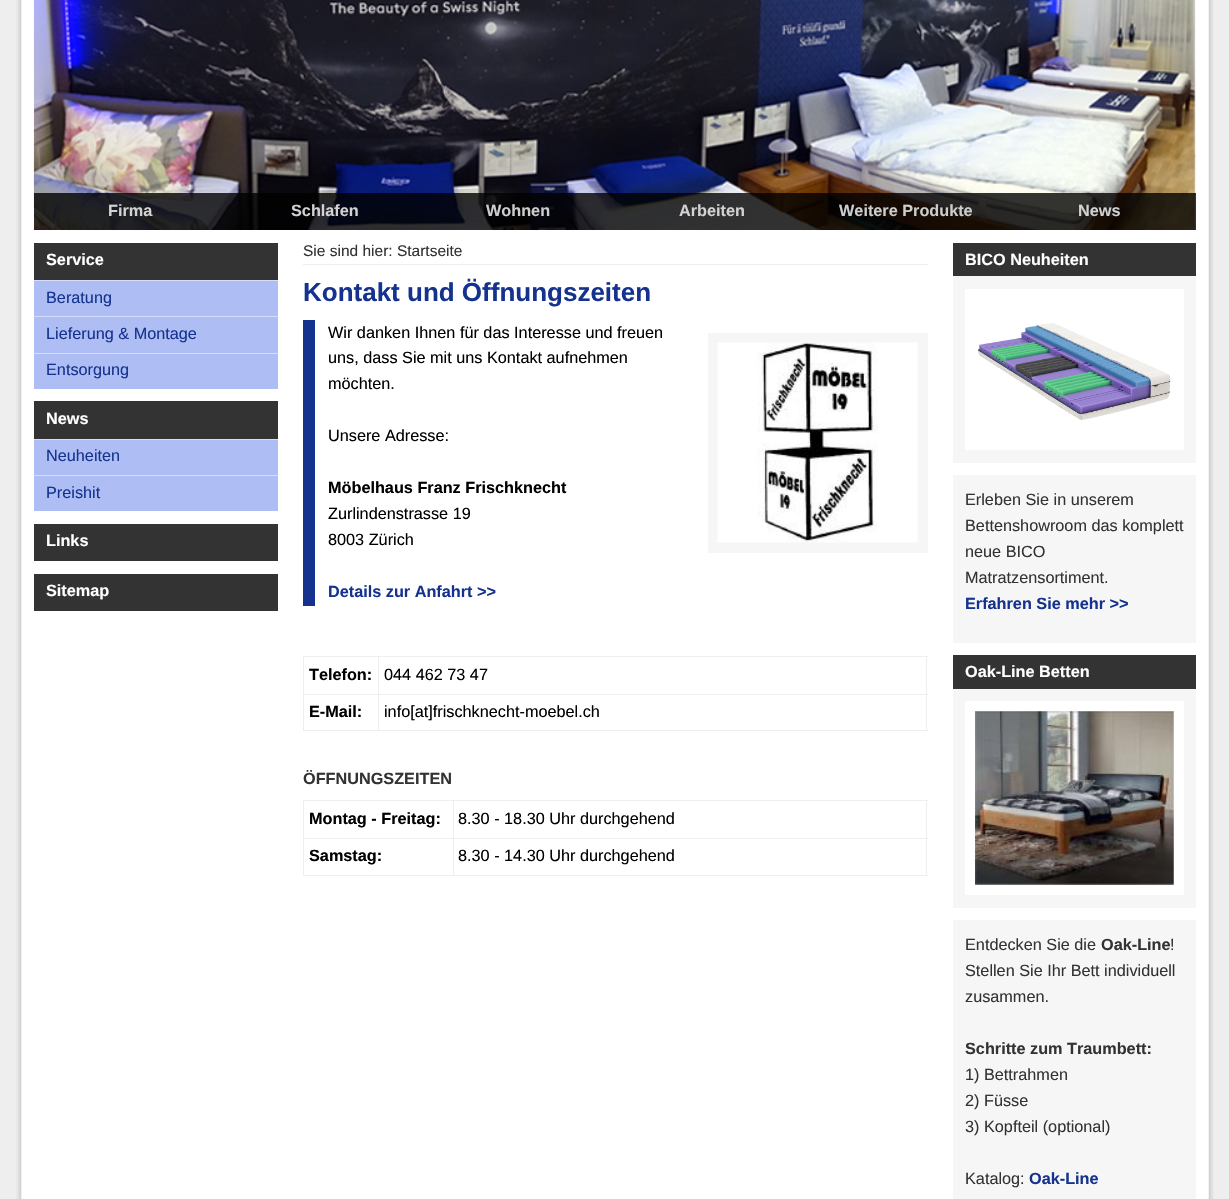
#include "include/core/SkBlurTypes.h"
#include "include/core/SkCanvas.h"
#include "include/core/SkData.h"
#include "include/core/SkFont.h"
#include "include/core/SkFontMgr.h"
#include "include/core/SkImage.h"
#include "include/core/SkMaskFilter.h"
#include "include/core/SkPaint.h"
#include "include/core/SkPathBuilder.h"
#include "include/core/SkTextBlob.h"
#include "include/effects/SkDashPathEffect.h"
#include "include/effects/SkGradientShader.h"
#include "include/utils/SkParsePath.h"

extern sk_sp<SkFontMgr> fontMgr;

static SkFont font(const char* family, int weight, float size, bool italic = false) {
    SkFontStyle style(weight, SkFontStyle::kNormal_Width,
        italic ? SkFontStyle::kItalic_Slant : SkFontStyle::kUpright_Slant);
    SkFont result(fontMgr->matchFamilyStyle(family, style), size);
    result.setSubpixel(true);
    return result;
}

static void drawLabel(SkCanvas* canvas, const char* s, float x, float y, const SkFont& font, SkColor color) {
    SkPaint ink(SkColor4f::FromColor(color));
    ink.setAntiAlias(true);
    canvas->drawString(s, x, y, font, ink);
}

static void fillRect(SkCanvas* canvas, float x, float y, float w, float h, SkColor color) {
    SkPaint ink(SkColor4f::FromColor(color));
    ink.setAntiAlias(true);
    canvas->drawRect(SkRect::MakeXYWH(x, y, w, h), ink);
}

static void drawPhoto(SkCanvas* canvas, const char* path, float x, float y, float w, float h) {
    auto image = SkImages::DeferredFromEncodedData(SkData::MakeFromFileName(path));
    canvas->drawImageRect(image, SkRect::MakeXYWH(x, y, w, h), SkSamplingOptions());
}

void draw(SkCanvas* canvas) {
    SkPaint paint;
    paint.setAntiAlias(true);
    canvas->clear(0xFFEEEEEE);
    drawPhoto(canvas, "assets/img1.png", 16, 0, 1198, 1199);
    drawPhoto(canvas, "assets/img2.png", 33, 0, 1163, 230);
    fillRect(canvas, 34, 193, 194, 37, 0xCC000000);
    SkFont font1 = font("Liberation Sans", 700, 16.25f);
    drawLabel(canvas, "Firma", 108, 216, font1, 0xFFD2D2D3);
    fillRect(canvas, 228, 193, 193, 37, 0xCC000000);
    drawLabel(canvas, "Schlafen", 291, 216, font1, 0xFFD2D2D3);
    fillRect(canvas, 421, 193, 194, 37, 0xCC000000);
    drawLabel(canvas, "Wohnen", 486, 216, font1, 0xFFCDCDCD);
    fillRect(canvas, 615, 193, 194, 37, 0xCC000000);
    drawLabel(canvas, "Arbeiten", 679, 216, font1, 0xFFD2D2D3);
    fillRect(canvas, 809, 193, 194, 37, 0xCC000000);
    drawLabel(canvas, "Weitere Produkte", 839, 216, font1, 0xFFCDCDCD);
    fillRect(canvas, 1003, 193, 193, 37, 0xCC000000);
    drawLabel(canvas, "News", 1078, 216, font1, 0xFFD2D2D3);
    fillRect(canvas, 34, 243, 244, 37, 0xFF333333);
    drawLabel(canvas, "Service", 46, 265, font1, 0xFFFFFFFF);
    fillRect(canvas, 34, 281, 244, 35, 0xFFAEBEF4);
    fillRect(canvas, 34, 280, 244, 1, 0xFFD6DDFA);
    SkFont font2 = font("Liberation Sans", 400, 16.25f);
    drawLabel(canvas, "Beratung", 46, 303, font2, 0xFF15338E);
    fillRect(canvas, 34, 317, 244, 36, 0xFFAEBEF4);
    fillRect(canvas, 34, 316, 244, 1, 0xFFD6DDFA);
    drawLabel(canvas, "Lieferung & Montage", 46, 339, font2, 0xFF15338E);
    fillRect(canvas, 34, 354, 244, 35, 0xFFAEBEF4);
    fillRect(canvas, 34, 353, 244, 1, 0xFFD6DDFA);
    drawLabel(canvas, "Entsorgung", 46, 375, font2, 0xFF15338E);
    fillRect(canvas, 34, 401, 244, 38, 0xFF333333);
    drawLabel(canvas, "News", 46, 424, font1, 0xFFFFFFFF);
    fillRect(canvas, 34, 440, 244, 35, 0xFFAEBEF4);
    fillRect(canvas, 34, 439, 244, 1, 0xFFD6DDFA);
    drawLabel(canvas, "Neuheiten", 46, 461, font2, 0xFF15338E);
    fillRect(canvas, 34, 476, 244, 35, 0xFFAEBEF4);
    fillRect(canvas, 34, 475, 244, 1, 0xFFD6DDFA);
    drawLabel(canvas, "Preishit", 46, 498, font2, 0xFF15338E);
    fillRect(canvas, 34, 524, 244, 37, 0xFF333333);
    drawLabel(canvas, "Links", 46, 546, font1, 0xFFFFFFFF);
    fillRect(canvas, 34, 574, 244, 37, 0xFF333333);
    drawLabel(canvas, "Sitemap", 46, 596, font1, 0xFFFFFFFF);
    fillRect(canvas, 303, 264, 625, 1, 0xFFEEEEEE);
    SkFont font3 = font("Liberation Sans", 400, 15.5f);
    drawLabel(canvas, "Sie sind hier: Startseite", 303, 256, font3, 0xFF333333);
    SkFont font4 = font("Liberation Sans", 700, 26);
    drawLabel(canvas, "Kontakt und Öffnungszeiten", 303, 301, font4, 0xFF15338E);
    fillRect(canvas, 303, 320, 12, 286, 0xFF15338E);
    drawLabel(canvas, "Wir danken Ihnen für das Interesse und freuen", 328, 338, font2, 0xFF000000);
    drawLabel(canvas, "uns, dass Sie mit uns Kontakt aufnehmen", 328, 363, font2, 0xFF000000);
    drawLabel(canvas, "möchten.", 328, 389, font2, 0xFF000000);
    drawLabel(canvas, "Unsere Adresse:", 328, 441, font2, 0xFF000000);
    drawLabel(canvas, "Möbelhaus Franz Frischknecht", 328, 493, font1, 0xFF000000);
    drawLabel(canvas, "Zurlindenstrasse 19", 328, 519, font2, 0xFF000000);
    drawLabel(canvas, "8003 Zürich", 328, 545, font2, 0xFF000000);
    drawLabel(canvas, "Details zur Anfahrt >>", 328, 597, font1, 0xFF15338E);
    fillRect(canvas, 708, 333, 220, 220, 0xFFF6F6F6);
    drawPhoto(canvas, "assets/img3.png", 717, 342, 201, 201);
    fillRect(canvas, 303, 656, 625, 1, 0xFFEEEEEE);
    fillRect(canvas, 926, 656, 1, 75, 0xFFEEEEEE);
    fillRect(canvas, 303, 730, 625, 1, 0xFFEEEEEE);
    fillRect(canvas, 303, 656, 1, 75, 0xFFEEEEEE);
    drawLabel(canvas, "Telefon:", 309, 680, font1, 0xFF000000);
    fillRect(canvas, 378, 694, 550, 1, 0xFFEEEEEE);
    fillRect(canvas, 378, 694, 1, 37, 0xFFEEEEEE);
    fillRect(canvas, 303, 694, 76, 1, 0xFFEEEEEE);
    fillRect(canvas, 378, 656, 1, 39, 0xFFEEEEEE);
    drawLabel(canvas, "044 462 73 47", 384, 680, font2, 0xFF000000);
    drawLabel(canvas, "E-Mail:", 309, 717, font1, 0xFF000000);
    drawLabel(canvas, "info[at]frischknecht-moebel.ch", 384, 717, font2, 0xFF000000);
    drawLabel(canvas, "ÖFFNUNGSZEITEN", 303, 784, font1, 0xFF333333);
    fillRect(canvas, 303, 800, 625, 1, 0xFFEEEEEE);
    fillRect(canvas, 926, 800, 1, 76, 0xFFEEEEEE);
    fillRect(canvas, 303, 875, 625, 1, 0xFFEEEEEE);
    fillRect(canvas, 303, 800, 1, 76, 0xFFEEEEEE);
    drawLabel(canvas, "Montag - Freitag:", 309, 824, font1, 0xFF000000);
    fillRect(canvas, 453, 838, 475, 1, 0xFFEEEEEE);
    fillRect(canvas, 453, 838, 1, 38, 0xFFEEEEEE);
    fillRect(canvas, 303, 838, 151, 1, 0xFFEEEEEE);
    fillRect(canvas, 453, 800, 1, 39, 0xFFEEEEEE);
    drawLabel(canvas, "8.30 - 18.30 Uhr durchgehend", 458, 824, font2, 0xFF000000);
    drawLabel(canvas, "Samstag:", 309, 861, font1, 0xFF000000);
    drawLabel(canvas, "8.30 - 14.30 Uhr durchgehend", 458, 861, font2, 0xFF000000);
    fillRect(canvas, 953, 243, 243, 33, 0xFF333333);
    drawLabel(canvas, "BICO Neuheiten", 965, 265, font1, 0xFFFFFFFF);
    fillRect(canvas, 953, 276, 243, 187, 0xFFF6F6F6);
    fillRect(canvas, 965, 289, 219, 161, 0xFFFFFFFF);
    drawPhoto(canvas, "assets/img4.png", 977, 323, 194, 97);
    fillRect(canvas, 953, 475, 243, 168, 0xFFF6F6F6);
    drawLabel(canvas, "Erleben Sie in unserem", 965, 505, font2, 0xFF333333);
    drawLabel(canvas, "Bettenshowroom das komplett", 965, 531, font2, 0xFF333333);
    drawLabel(canvas, "neue BICO", 965, 557, font2, 0xFF333333);
    drawLabel(canvas, "Matratzensortiment.", 965, 583, font2, 0xFF333333);
    drawLabel(canvas, "Erfahren Sie mehr >>", 965, 609, font1, 0xFF15338E);
    fillRect(canvas, 953, 655, 243, 34, 0xFF333333);
    drawLabel(canvas, "Oak-Line Betten", 965, 677, font1, 0xFFFFFFFF);
    fillRect(canvas, 953, 689, 243, 219, 0xFFF6F6F6);
    fillRect(canvas, 965, 701, 219, 194, 0xFFFFFFFF);
    drawPhoto(canvas, "assets/img5.png", 975, 711, 199, 174);
    fillRect(canvas, 953, 920, 243, 279, 0xFFF6F6F6);
    drawLabel(canvas, "Entdecken Sie die", 965, 950, font2, 0xFF333333);
    drawLabel(canvas, "Oak-Line", 1101, 950, font1, 0xFF333333);
    drawLabel(canvas, "!", 1170, 950, font2, 0xFF333333);
    drawLabel(canvas, "Stellen Sie Ihr Bett individuell", 965, 976, font2, 0xFF333333);
    drawLabel(canvas, "zusammen.", 965, 1002, font2, 0xFF333333);
    drawLabel(canvas, "Schritte zum Traumbett:", 965, 1054, font1, 0xFF333333);
    drawLabel(canvas, "1) Bettrahmen", 965, 1080, font2, 0xFF333333);
    drawLabel(canvas, "2) Füsse", 965, 1106, font2, 0xFF333333);
    drawLabel(canvas, "3) Kopfteil (optional)", 965, 1132, font2, 0xFF333333);
    drawLabel(canvas, "Katalog:", 965, 1184, font2, 0xFF333333);
    drawLabel(canvas, "Oak-Line", 1029, 1184, font1, 0xFF15338E);
}
